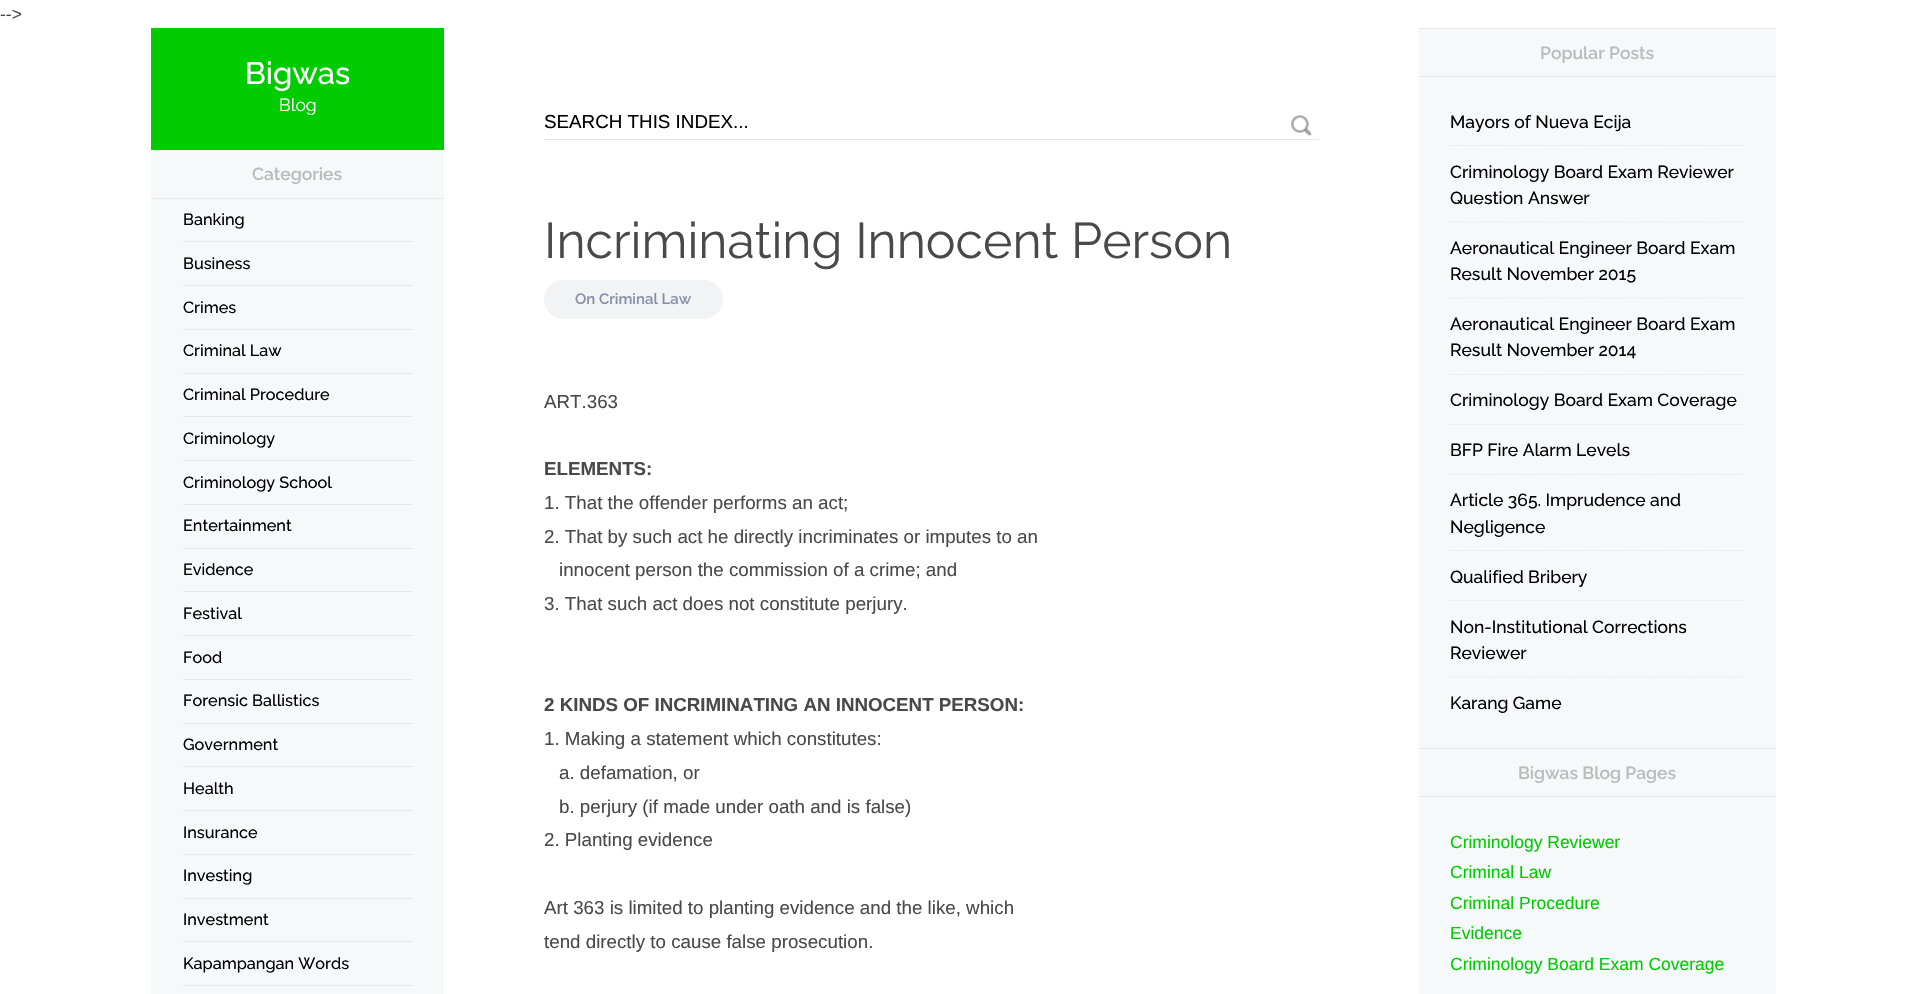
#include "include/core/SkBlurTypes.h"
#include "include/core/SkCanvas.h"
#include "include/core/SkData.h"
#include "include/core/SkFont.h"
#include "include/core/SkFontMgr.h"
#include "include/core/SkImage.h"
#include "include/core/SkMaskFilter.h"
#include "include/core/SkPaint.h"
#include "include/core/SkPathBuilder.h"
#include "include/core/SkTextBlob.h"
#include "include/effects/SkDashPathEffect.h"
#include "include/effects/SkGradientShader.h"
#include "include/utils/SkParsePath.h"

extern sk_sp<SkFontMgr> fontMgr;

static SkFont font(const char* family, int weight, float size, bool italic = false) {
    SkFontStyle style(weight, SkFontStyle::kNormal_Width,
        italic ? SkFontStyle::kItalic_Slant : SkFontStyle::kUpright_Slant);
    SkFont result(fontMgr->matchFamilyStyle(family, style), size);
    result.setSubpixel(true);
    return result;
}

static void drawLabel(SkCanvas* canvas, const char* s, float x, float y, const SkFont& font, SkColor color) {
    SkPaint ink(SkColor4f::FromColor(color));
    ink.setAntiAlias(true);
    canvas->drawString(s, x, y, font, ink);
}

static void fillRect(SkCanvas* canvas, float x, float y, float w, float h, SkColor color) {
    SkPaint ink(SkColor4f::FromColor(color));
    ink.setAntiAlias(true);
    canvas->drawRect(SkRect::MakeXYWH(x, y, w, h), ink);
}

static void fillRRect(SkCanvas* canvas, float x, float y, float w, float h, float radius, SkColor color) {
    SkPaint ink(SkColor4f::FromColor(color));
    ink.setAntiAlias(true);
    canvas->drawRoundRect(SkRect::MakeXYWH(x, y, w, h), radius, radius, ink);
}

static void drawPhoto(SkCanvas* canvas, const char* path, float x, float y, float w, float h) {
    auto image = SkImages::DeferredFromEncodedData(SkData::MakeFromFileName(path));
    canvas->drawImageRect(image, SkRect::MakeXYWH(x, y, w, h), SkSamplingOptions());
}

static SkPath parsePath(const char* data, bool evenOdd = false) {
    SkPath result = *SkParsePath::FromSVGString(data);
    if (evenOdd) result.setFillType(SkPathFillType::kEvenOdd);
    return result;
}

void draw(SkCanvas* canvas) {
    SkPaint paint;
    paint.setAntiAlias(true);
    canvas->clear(0xFFFFFFFF);
    SkFont font1 = font("Liberation Sans", 400, 17.5f);
    drawLabel(canvas, "-->", 0, 20, font1, 0xFF494949);
    fillRect(canvas, 151, 29, 1625, 965, 0xFFF6F9FA);
    fillRect(canvas, 151, 28, 293, 122, 0xFF00CC00);
    SkFont font2 = font("Raleway", 500, 31);
    drawLabel(canvas, "Bigwas", 245, 84, font2, 0xFFFFFFFF);
    SkFont font3 = font("Raleway", 400, 17.5f);
    drawLabel(canvas, "Blog", 279, 111, font3, 0xFFFFFFFF);
    fillRect(canvas, 151, 198, 293, 1, 0xFFE7E7E7);
    SkFont font4 = font("Raleway", 600, 17.5f);
    drawLabel(canvas, "Categories", 252, 180, font4, 0xFFBBBBBB);
    fillRect(canvas, 183, 241, 230, 1, 0xFFE7E7E7);
    SkFont font5 = font("Raleway", 500, 16.25f);
    drawLabel(canvas, "Banking", 183, 225, font5, 0xFF000000);
    fillRect(canvas, 183, 285, 230, 1, 0xFFE7E7E7);
    drawLabel(canvas, "Business", 183, 269, font5, 0xFF000000);
    fillRect(canvas, 183, 329, 230, 1, 0xFFE7E7E7);
    drawLabel(canvas, "Crimes", 183, 313, font5, 0xFF000000);
    fillRect(canvas, 183, 373, 230, 1, 0xFFE7E7E7);
    drawLabel(canvas, "Criminal Law", 183, 356, font5, 0xFF000000);
    fillRect(canvas, 183, 416, 230, 1, 0xFFE7E7E7);
    drawLabel(canvas, "Criminal Procedure", 183, 400, font5, 0xFF000000);
    fillRect(canvas, 183, 460, 230, 1, 0xFFE7E7E7);
    drawLabel(canvas, "Criminology", 183, 444, font5, 0xFF000000);
    fillRect(canvas, 183, 504, 230, 1, 0xFFE7E7E7);
    drawLabel(canvas, "Criminology School", 183, 488, font5, 0xFF000000);
    fillRect(canvas, 183, 548, 230, 1, 0xFFE7E7E7);
    drawLabel(canvas, "Entertainment", 183, 531, font5, 0xFF000000);
    fillRect(canvas, 183, 591, 230, 1, 0xFFE7E7E7);
    drawLabel(canvas, "Evidence", 183, 575, font5, 0xFF000000);
    fillRect(canvas, 183, 635, 230, 1, 0xFFE7E7E7);
    drawLabel(canvas, "Festival", 183, 619, font5, 0xFF000000);
    fillRect(canvas, 183, 679, 230, 1, 0xFFE7E7E7);
    drawLabel(canvas, "Food", 183, 663, font5, 0xFF000000);
    fillRect(canvas, 183, 723, 230, 1, 0xFFE7E7E7);
    drawLabel(canvas, "Forensic Ballistics", 183, 706, font5, 0xFF000000);
    fillRect(canvas, 183, 766, 230, 1, 0xFFE7E7E7);
    drawLabel(canvas, "Government", 183, 750, font5, 0xFF000000);
    fillRect(canvas, 183, 810, 230, 1, 0xFFE7E7E7);
    drawLabel(canvas, "Health", 183, 794, font5, 0xFF000000);
    fillRect(canvas, 183, 854, 230, 1, 0xFFE7E7E7);
    drawLabel(canvas, "Insurance", 183, 838, font5, 0xFF000000);
    fillRect(canvas, 183, 898, 230, 1, 0xFFE7E7E7);
    drawLabel(canvas, "Investing", 183, 881, font5, 0xFF000000);
    fillRect(canvas, 183, 941, 230, 1, 0xFFE7E7E7);
    drawLabel(canvas, "Investment", 183, 925, font5, 0xFF000000);
    fillRect(canvas, 183, 985, 230, 1, 0xFFE7E7E7);
    drawLabel(canvas, "Kapampangan Words", 183, 969, font5, 0xFF000000);
    fillRect(canvas, 444, 29, 975, 965, 0xFFFFFFFF);
    fillRect(canvas, 544, 139, 775, 1, 0xFFE7E7E7);
    SkFont font6 = font("Liberation Sans", 400, 18.8f);
    drawLabel(canvas, "SEARCH THIS INDEX...", 544, 128, font6, 0xFF000000);
    drawPhoto(canvas, "assets/img1.png", 1291, 115, 21, 22);
    SkFont font7 = font("Raleway", 400, 50);
    drawLabel(canvas, "Incriminating Innocent Person", 544, 258, font7, 0xFF494949);
    fillRRect(canvas, 544, 280, 179, 39, 19.5f, 0xFFF1F3F4);
    SkFont font8 = font("Raleway", 600, 15);
    drawLabel(canvas, "On Criminal Law", 575, 304, font8, 0xFF8890A7);
    SkFont font9 = font("Liberation Sans", 400, 18.75f);
    drawLabel(canvas, "ART.363", 544, 408, font9, 0xFF494949);
    SkFont font10 = font("Liberation Sans", 700, 18.75f);
    drawLabel(canvas, "ELEMENTS:", 544, 475, font10, 0xFF494949);
    drawLabel(canvas, "1. That the offender performs an act;", 544, 509, font9, 0xFF494949);
    drawLabel(canvas, "2. That by such act he directly incriminates or imputes to an", 544, 543, font9, 0xFF494949);
    drawLabel(canvas, "innocent person the commission of a crime; and", 559, 576, font9, 0xFF494949);
    drawLabel(canvas, "3. That such act does not constitute perjury.", 544, 610, font9, 0xFF494949);
    drawLabel(canvas, "2 KINDS OF INCRIMINATING AN INNOCENT PERSON:", 544, 711, font10, 0xFF494949);
    drawLabel(canvas, "1. Making a statement which constitutes:", 544, 745, font9, 0xFF494949);
    drawLabel(canvas, "a. defamation, or", 559, 779, font9, 0xFF494949);
    drawLabel(canvas, "b. perjury (if made under oath and is false)", 559, 813, font9, 0xFF494949);
    drawLabel(canvas, "2. Planting evidence", 544, 846, font9, 0xFF494949);
    drawLabel(canvas, "Art 363 is limited to planting evidence and the like, which", 544, 914, font9, 0xFF494949);
    drawLabel(canvas, "tend directly to cause false prosecution.", 544, 948, font9, 0xFF494949);
    fillRect(canvas, 1419, 28, 357, 1, 0xFFE7E7E7);
    fillRect(canvas, 1419, 76, 357, 1, 0xFFE7E7E7);
    drawLabel(canvas, "Popular Posts", 1540, 59, font4, 0xFFBBBBBB);
    paint.setStroke(true);
    paint.setStrokeWidth(1.2f);
    paint.setColor(0xFFE7E7E7);
    paint.setPathEffect(SkDashPathEffect::Make({{1.25f, 1.25f}}, 0));
    canvas->drawPath(parsePath("M1450 145.5H1745"), paint);
    paint.setPathEffect(nullptr);
    SkFont font11 = font("Raleway", 500, 17.5f);
    drawLabel(canvas, "Mayors of Nueva Ecija", 1450, 128, font11, 0xFF000000);
    paint.setPathEffect(SkDashPathEffect::Make({{1.25f, 1.25f}}, 0));
    canvas->drawPath(parsePath("M1450 222H1745"), paint);
    paint.setPathEffect(nullptr);
    drawLabel(canvas, "Criminology Board Exam Reviewer", 1450, 178, font11, 0xFF000000);
    drawLabel(canvas, "Question Answer", 1450, 204, font11, 0xFF000000);
    paint.setPathEffect(SkDashPathEffect::Make({{1.25f, 1.25f}}, 0));
    canvas->drawPath(parsePath("M1450 298H1745"), paint);
    paint.setPathEffect(nullptr);
    drawLabel(canvas, "Aeronautical Engineer Board Exam", 1450, 254, font11, 0xFF000000);
    drawLabel(canvas, "Result November 2015", 1450, 280, font11, 0xFF000000);
    paint.setPathEffect(SkDashPathEffect::Make({{1.25f, 1.25f}}, 0));
    canvas->drawPath(parsePath("M1450 374.5H1745"), paint);
    paint.setPathEffect(nullptr);
    drawLabel(canvas, "Aeronautical Engineer Board Exam", 1450, 330, font11, 0xFF000000);
    drawLabel(canvas, "Result November 2014", 1450, 356, font11, 0xFF000000);
    paint.setPathEffect(SkDashPathEffect::Make({{1.25f, 1.25f}}, 0));
    canvas->drawPath(parsePath("M1450 424.5H1745"), paint);
    paint.setPathEffect(nullptr);
    drawLabel(canvas, "Criminology Board Exam Coverage", 1450, 406, font11, 0xFF000000);
    paint.setPathEffect(SkDashPathEffect::Make({{1.25f, 1.25f}}, 0));
    canvas->drawPath(parsePath("M1450 474.5H1745"), paint);
    paint.setPathEffect(nullptr);
    drawLabel(canvas, "BFP Fire Alarm Levels", 1450, 456, font11, 0xFF000000);
    paint.setPathEffect(SkDashPathEffect::Make({{1.25f, 1.25f}}, 0));
    canvas->drawPath(parsePath("M1450 550.5H1745"), paint);
    paint.setPathEffect(nullptr);
    drawLabel(canvas, "Article 365. Imprudence and", 1450, 506, font11, 0xFF000000);
    drawLabel(canvas, "Negligence", 1450, 533, font11, 0xFF000000);
    paint.setPathEffect(SkDashPathEffect::Make({{1.25f, 1.25f}}, 0));
    canvas->drawPath(parsePath("M1450 600.5H1745"), paint);
    paint.setPathEffect(nullptr);
    drawLabel(canvas, "Qualified Bribery", 1450, 583, font11, 0xFF000000);
    paint.setPathEffect(SkDashPathEffect::Make({{1.25f, 1.25f}}, 0));
    canvas->drawPath(parsePath("M1450 677H1745"), paint);
    paint.setPathEffect(nullptr);
    drawLabel(canvas, "Non-Institutional Corrections", 1450, 633, font11, 0xFF000000);
    drawLabel(canvas, "Reviewer", 1450, 659, font11, 0xFF000000);
    drawLabel(canvas, "Karang Game", 1450, 709, font11, 0xFF000000);
    fillRect(canvas, 1419, 748, 357, 1, 0xFFE7E7E7);
    fillRect(canvas, 1419, 796, 357, 1, 0xFFE7E7E7);
    drawLabel(canvas, "Bigwas Blog Pages", 1518, 779, font4, 0xFFBBBBBB);
    drawLabel(canvas, "Criminology Reviewer", 1450, 848, font1, 0xFF00CC00);
    drawLabel(canvas, "Criminal Law", 1450, 878, font1, 0xFF00CC00);
    drawLabel(canvas, "Criminal Procedure", 1450, 909, font1, 0xFF00CC00);
    drawLabel(canvas, "Evidence", 1450, 939, font1, 0xFF00CC00);
    drawLabel(canvas, "Criminology Board Exam Coverage", 1450, 970, font1, 0xFF00CC00);
}
